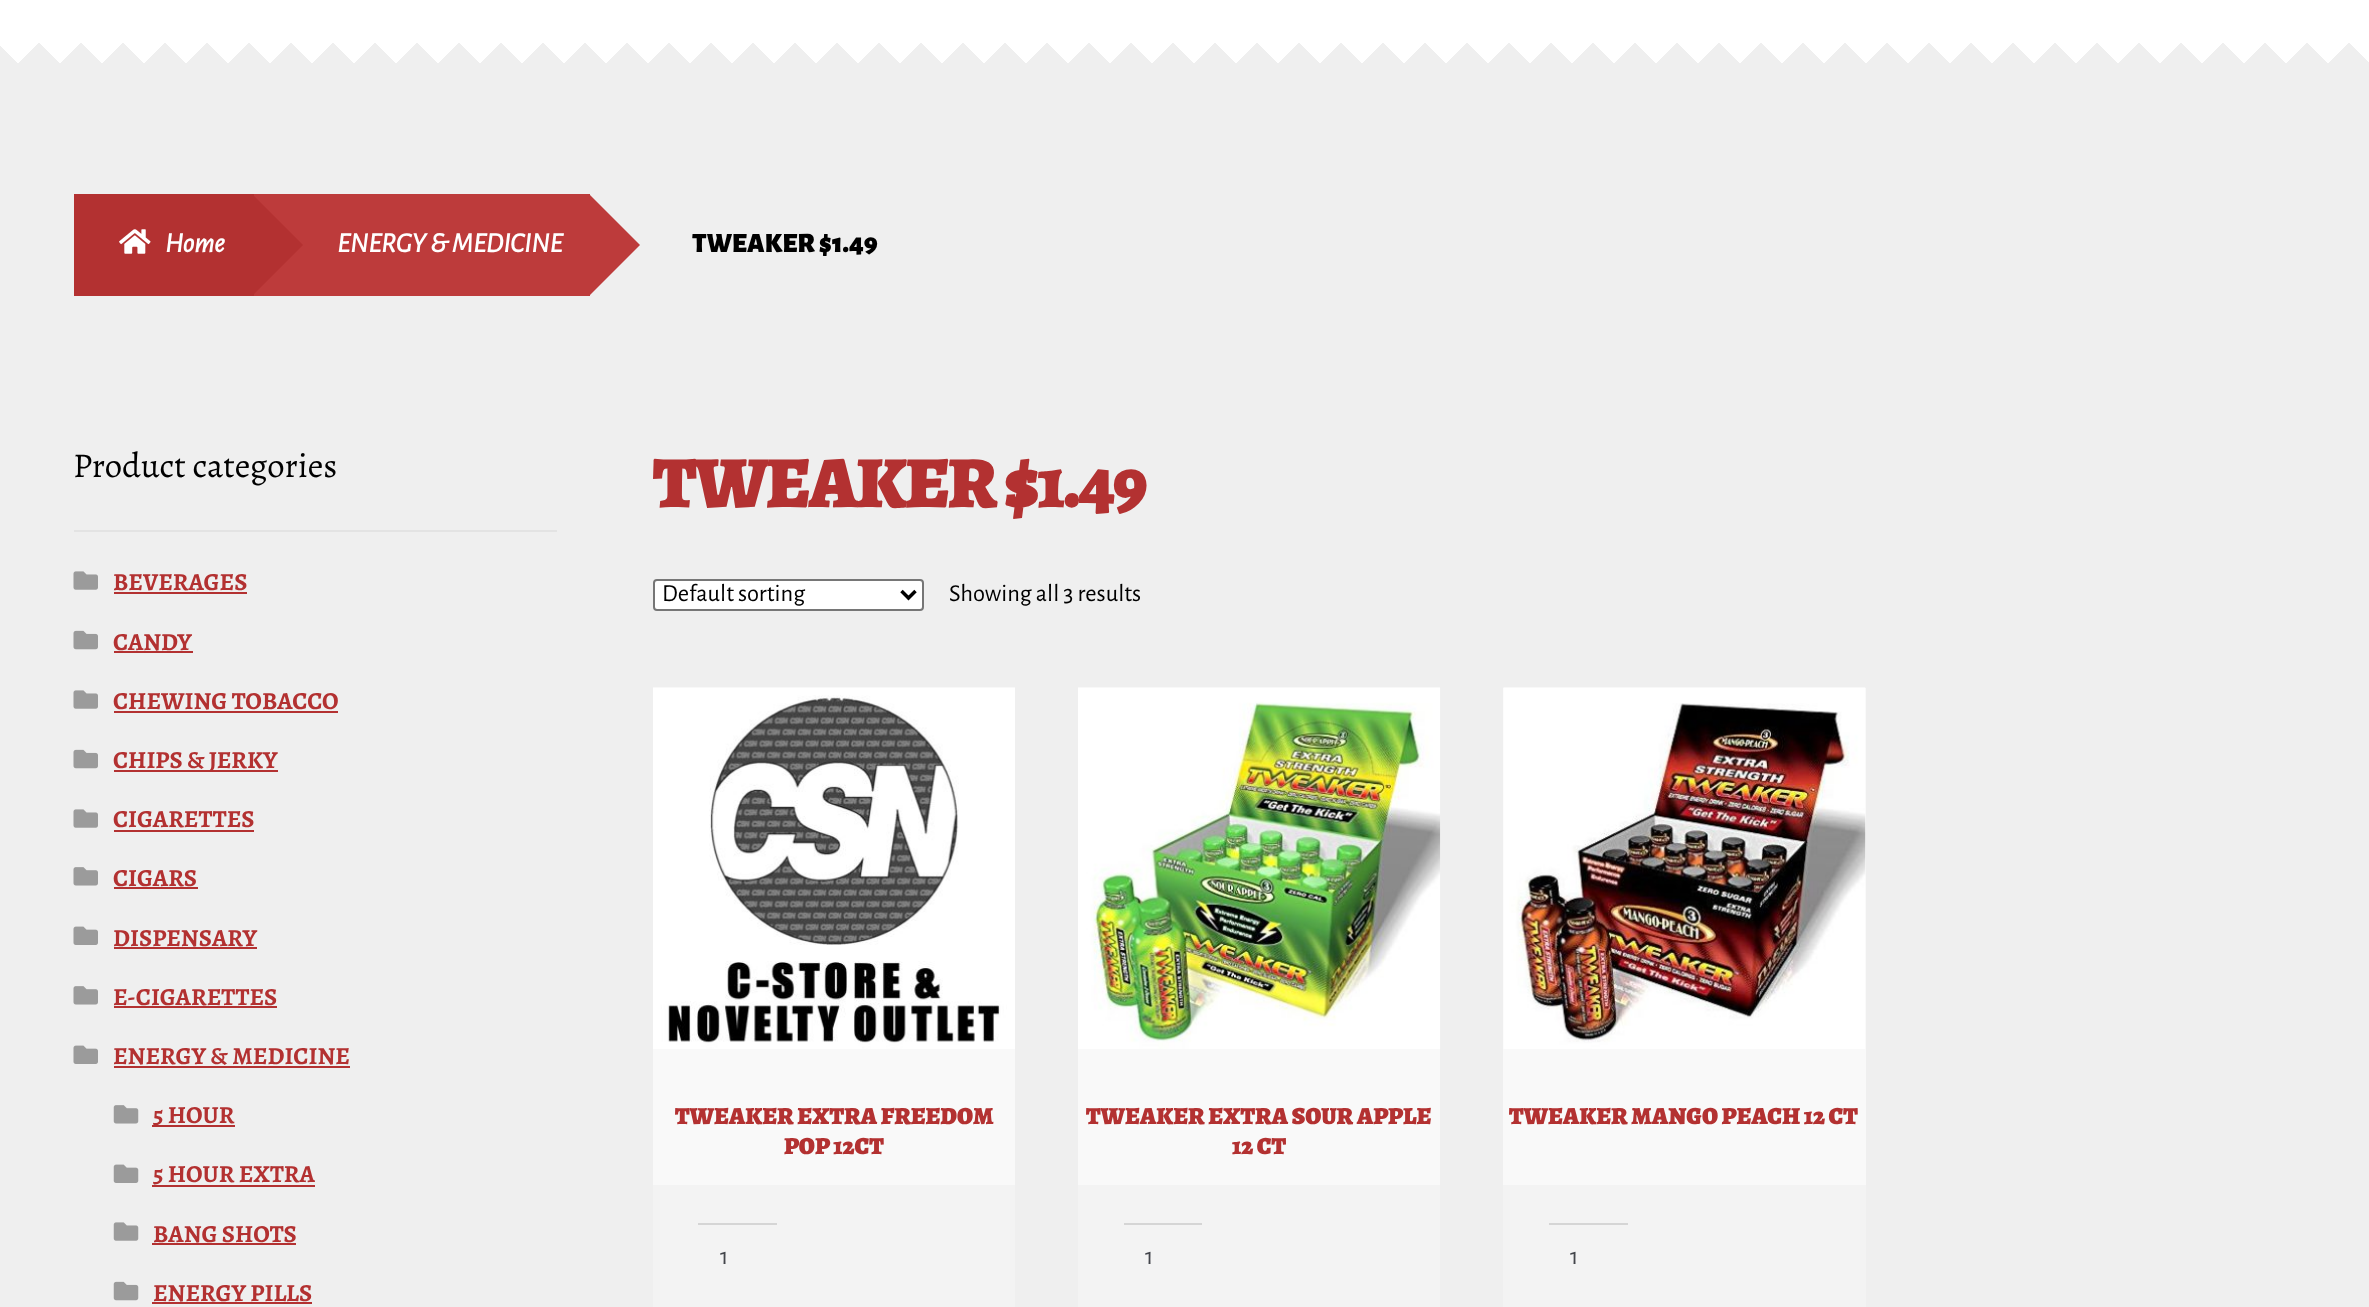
async function draw(canvas) {
  canvas.width = 2369
  canvas.height = 1307
  const ctx = canvas.getContext('2d')
  ctx.miterLimit = 4
  ctx.fontKerning = 'normal'
  async function loadImage(src) {
    const img = new Image()
    img.src = src
    await img.decode()
    return img
  }

  ctx.fillStyle = '#efefef'
  ctx.fillRect(0, 0, 2369, 1307)
  ctx.fillStyle = '#fff'
  ctx.fillRect(0, 0, 2369, 35)
  ctx.drawImage(await loadImage('image0.png'), 0, 35, 2369, 28)
  ctx.drawImage(await loadImage('image1.png'), 18, 35, 2331, 28)
  ctx.fillStyle = '#b33131'
  ctx.fillRect(74, 194, 180, 102)
  ctx.drawImage(await loadImage('image2.png'), 119, 229, 32, 25)
  ctx.font = 'italic bold 28px Alegreya Sans'
  ctx.fillStyle = '#fff'
  ctx.fillText('Home', 165, 252)
  ctx.fillStyle = '#bd3b3b'
  ctx.fillRect(254, 194, 336, 102)
  ctx.save()
  ctx.beginPath()
  ctx.rect(74, 194, 2222, 102)
  ctx.clip()
  ctx.fillStyle = '#b33131'
  ctx.beginPath()
  ctx.moveTo(247, 301)
  ctx.lineTo(247, 189)
  ctx.lineTo(303, 245)
  ctx.closePath()
  ctx.fill()
  ctx.restore()
  ctx.fillStyle = '#fff'
  ctx.fillText('ENERGY & MEDICINE', 337, 252)
  ctx.save()
  ctx.beginPath()
  ctx.rect(74, 194, 2222, 102)
  ctx.clip()
  ctx.fillStyle = '#bd3b3b'
  ctx.beginPath()
  ctx.moveTo(584, 301)
  ctx.lineTo(584, 189)
  ctx.lineTo(640, 245)
  ctx.closePath()
  ctx.fill()
  ctx.restore()
  ctx.font = '900 28px Alegreya Sans'
  ctx.fillStyle = '#000'
  ctx.fillText('TWEAKER $1.49', 692, 252)
  ctx.fillStyle = '#e3e3e3'
  ctx.fillRect(74, 530, 483, 2)
  ctx.font = '34.75px Alegreya'
  ctx.fillStyle = '#000'
  ctx.fillText('Product categories', 73, 477)
  ctx.drawImage(await loadImage('image3.png'), 73, 571, 25, 19)
  ctx.font = 'bold 24.5px Alegreya'
  ctx.fillStyle = '#b33131'
  ctx.fillText('BEVERAGES', 113, 590)
  ctx.fillRect(114, 592, 133, 2)
  ctx.drawImage(await loadImage('image4.png'), 73, 630, 25, 20)
  ctx.fillText('CANDY', 113, 650)
  ctx.fillRect(114, 651, 79, 2)
  ctx.drawImage(await loadImage('image3.png'), 73, 690, 25, 19)
  ctx.fillText('CHEWING TOBACCO', 113, 709)
  ctx.fillRect(114, 711, 224, 2)
  ctx.drawImage(await loadImage('image4.png'), 73, 749, 25, 20)
  ctx.fillRect(114, 770, 164, 2)
  ctx.fillText('CHIPS & JERKY', 113, 768)
  ctx.drawImage(await loadImage('image3.png'), 73, 809, 25, 19)
  ctx.fillText('CIGARETTES', 113, 827)
  ctx.fillRect(114, 830, 140, 2)
  ctx.drawImage(await loadImage('image5.png'), 73, 867, 25, 19)
  ctx.fillText('CIGARS', 113, 886)
  ctx.fillRect(114, 887, 84, 2)
  ctx.drawImage(await loadImage('image6.png'), 73, 926, 25, 19)
  ctx.fillText('DISPENSARY', 113, 946)
  ctx.fillRect(114, 947, 143, 2)
  ctx.drawImage(await loadImage('image5.png'), 73, 986, 25, 19)
  ctx.fillText('E-CIGARETTES', 113, 1005)
  ctx.fillRect(114, 1006, 163, 2)
  ctx.drawImage(await loadImage('image6.png'), 73, 1045, 25, 19)
  ctx.fillText('ENERGY & MEDICINE', 113, 1064)
  ctx.fillRect(114, 1066, 236, 2)
  ctx.drawImage(await loadImage('image7.png'), 113, 1105, 26, 19)
  ctx.fillRect(152, 1125, 83, 2)
  ctx.fillText('5 HOUR', 153, 1123)
  ctx.drawImage(await loadImage('image8.png'), 113, 1164, 26, 19)
  ctx.fillText('5 HOUR EXTRA', 153, 1182)
  ctx.fillRect(152, 1185, 163, 2)
  ctx.drawImage(await loadImage('image9.png'), 113, 1222, 26, 19)
  ctx.fillText('BANG SHOTS', 153, 1242)
  ctx.fillRect(152, 1243, 144, 2)
  ctx.drawImage(await loadImage('image10.png'), 113, 1281, 26, 20)
  ctx.fillText('ENERGY PILLS', 153, 1301)
  ctx.fillRect(152, 1302, 160, 2)
  ctx.letterSpacing = '-1.75px'
  ctx.font = '900 73.25px Alegreya'
  ctx.fillText('TWEAKER $1.49', 653, 507)
  ctx.fillStyle = '#fff'
  ctx.beginPath()
  ctx.roundRect(654, 580, 269, 30, 3)
  ctx.fill()
  ctx.strokeStyle = '#767676'
  ctx.lineWidth = 2
  ctx.stroke()
  ctx.beginPath()
  ctx.moveTo(901.5, 591)
  ctx.lineTo(908.5, 598)
  ctx.lineTo(915.5, 591)
  ctx.strokeStyle = '#000'
  ctx.lineWidth = 3.5
  ctx.stroke()
  ctx.letterSpacing = '0px'
  ctx.font = '24.5px Alegreya Sans'
  ctx.fillStyle = '#000'
  ctx.fillText('Default sorting', 662, 601)
  ctx.fillText('Showing all 3 results', 949, 601)
  ctx.fillStyle = '#f9f9f9'
  ctx.fillRect(653, 1049, 362, 136)
  ctx.drawImage(await loadImage('image11.png'), 653, 687, 362, 362)
  ctx.font = '900 24.5px Alegreya'
  ctx.fillStyle = '#b33131'
  ctx.fillText('TWEAKER EXTRA FREEDOM', 675, 1124)
  ctx.fillText('POP 12CT', 784, 1154)
  ctx.fillStyle = '#f3f3f3'
  ctx.fillRect(653, 1185, 362, 122)
  ctx.fillStyle = '#d5d5d5'
  ctx.fillRect(698, 1223, 79, 2)
  ctx.font = '24.5px Alegreya Sans'
  ctx.fillStyle = '#43454b'
  ctx.fillText('1', 720, 1264)
  ctx.fillStyle = '#f9f9f9'
  ctx.fillRect(1078, 1049, 362, 136)
  ctx.drawImage(await loadImage('image12.png'), 1078, 687, 363, 362)
  ctx.font = '900 24.5px Alegreya'
  ctx.fillStyle = '#b33131'
  ctx.fillText('TWEAKER EXTRA SOUR APPLE', 1086, 1124)
  ctx.fillText('12 CT', 1232, 1154)
  ctx.fillStyle = '#f3f3f3'
  ctx.fillRect(1078, 1185, 362, 122)
  ctx.fillStyle = '#d5d5d5'
  ctx.fillRect(1124, 1223, 78, 2)
  ctx.font = '24.5px Alegreya Sans'
  ctx.fillStyle = '#43454b'
  ctx.fillText('1', 1145, 1264)
  ctx.fillStyle = '#f9f9f9'
  ctx.fillRect(1503, 688, 363, 497)
  ctx.drawImage(await loadImage('image13.png'), 1503, 687, 363, 362)
  ctx.font = '900 24.5px Alegreya'
  ctx.fillStyle = '#b33131'
  ctx.fillText('TWEAKER MANGO PEACH 12 CT', 1509, 1124)
  ctx.fillStyle = '#f3f3f3'
  ctx.fillRect(1503, 1185, 363, 122)
  ctx.fillStyle = '#d5d5d5'
  ctx.fillRect(1549, 1223, 79, 2)
  ctx.font = '24.5px Alegreya Sans'
  ctx.fillStyle = '#43454b'
  ctx.fillText('1', 1570, 1264)
}

draw(document.querySelector('canvas'))
